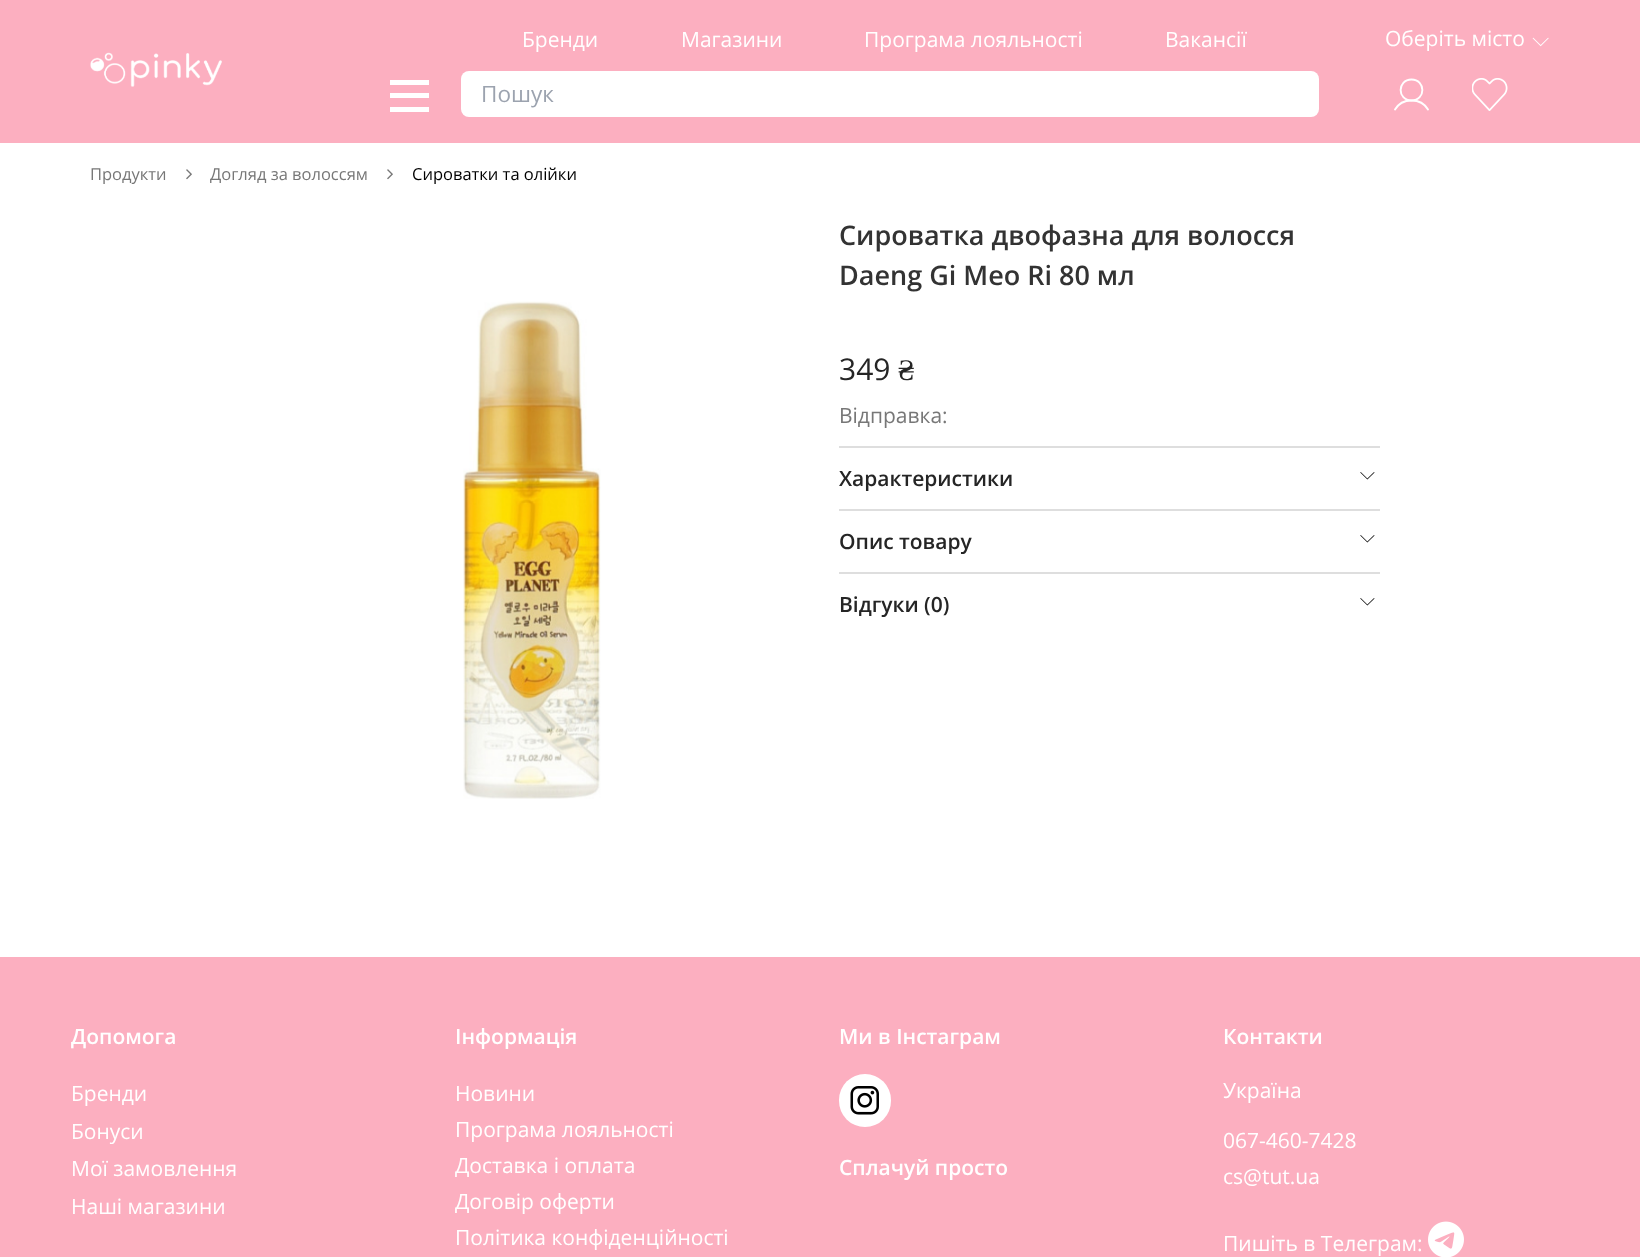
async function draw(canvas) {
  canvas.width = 1640
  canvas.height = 1257
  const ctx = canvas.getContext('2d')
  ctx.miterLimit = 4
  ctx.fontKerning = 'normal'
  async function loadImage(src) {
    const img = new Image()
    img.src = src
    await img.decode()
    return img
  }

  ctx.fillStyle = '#fff'
  ctx.fillRect(0, 0, 1640, 1257)
  ctx.fillStyle = '#fcafc0'
  ctx.fillRect(0, 0, 1640, 143)
  ctx.drawImage(await loadImage('image0.png'), 90, 52, 132, 35)
  ctx.fillStyle = '#fff'
  ctx.fillRect(390, 93, 39, 5)
  ctx.fillRect(390, 80, 39, 5)
  ctx.fillRect(390, 107, 39, 5)
  ctx.font = '21px Open Sans'
  ctx.fillText('Бренди', 522, 47)
  ctx.fillText('Магазини', 681, 47)
  ctx.fillText('Програма лояльності', 864, 47)
  ctx.fillText('Вакансії', 1165, 47)
  ctx.beginPath()
  ctx.roundRect(461, 71, 858, 46, 8)
  ctx.fill()
  ctx.font = '22.5px Open Sans'
  ctx.fillStyle = '#9ca3af'
  ctx.fillText('Пошук', 481, 102)
  ctx.font = '21px Open Sans'
  ctx.fillStyle = '#fff'
  ctx.fillText('Оберіть місто', 1385, 46)
  ctx.font = '19px Liberation Serif'
  ctx.save()
  ctx.translate(1538, 49)
  ctx.rotate(-45 * Math.PI / 180)
  ctx.fillText('∟', 0, 0)
  ctx.restore()
  ctx.beginPath()
  ctx.moveTo(1411.5, 100.5)
  ctx.bezierCurveTo(1426, 100.5, 1426, 79.5, 1411.5, 79.5)
  ctx.bezierCurveTo(1397, 79.5, 1397, 100.5, 1411.5, 100.5)
  ctx.closePath()
  ctx.strokeStyle = '#fff'
  ctx.lineWidth = 1.9
  ctx.stroke()
  ctx.beginPath()
  ctx.moveTo(1395, 109.5)
  ctx.bezierCurveTo(1402, 97.5, 1421, 97.5, 1428, 109.5)
  ctx.lineCap = 'round'
  ctx.lineJoin = 'round'
  ctx.stroke()
  ctx.drawImage(await loadImage('image1.png'), 1472, 78, 36, 33)
  ctx.font = '16.5px Open Sans'
  ctx.fillStyle = '#777'
  ctx.fillText('Продукти', 90, 180)
  ctx.drawImage(await loadImage('image2.png'), 186, 169, 6, 11)
  ctx.fillText('Догляд за волоссям', 210, 180)
  ctx.drawImage(await loadImage('image2.png'), 387, 169, 6, 11)
  ctx.fillStyle = '#000'
  ctx.fillText('Сироватки та олійки', 412, 180)
  ctx.drawImage(await loadImage('image3.png'), 463, 301, 138, 498)
  ctx.font = '600 27px Open Sans'
  ctx.fillStyle = '#333'
  ctx.fillText('Сироватка двофазна для волосся', 839, 245)
  ctx.fillText('Daeng Gi Meo Ri 80 мл', 839, 285)
  ctx.font = '30px Open Sans'
  ctx.fillStyle = '#252525'
  ctx.fillText('349', 839, 380)
  ctx.font = '30px Liberation Serif'
  ctx.fillText('₴', 898, 380)
  ctx.font = '21px Open Sans'
  ctx.fillStyle = '#777'
  ctx.fillText('Відправка:', 839, 423)
  ctx.fillStyle = '#dedede'
  ctx.fillRect(839, 446, 541, 2)
  ctx.font = '600 21px Open Sans'
  ctx.fillStyle = '#252525'
  ctx.fillText('Характеристики', 839, 486)
  ctx.font = 'bold 17px Liberation Serif'
  ctx.fillStyle = '#000'
  ctx.save()
  ctx.translate(1365, 482)
  ctx.rotate(-45 * Math.PI / 180)
  ctx.fillText('∟', 0, 0)
  ctx.restore()
  ctx.fillStyle = '#dedede'
  ctx.fillRect(839, 509, 541, 2)
  ctx.font = '600 21px Open Sans'
  ctx.fillStyle = '#252525'
  ctx.fillText('Опис товару', 839, 549)
  ctx.font = 'bold 17px Liberation Serif'
  ctx.fillStyle = '#000'
  ctx.save()
  ctx.translate(1365, 545)
  ctx.rotate(-45 * Math.PI / 180)
  ctx.fillText('∟', 0, 0)
  ctx.restore()
  ctx.fillStyle = '#dedede'
  ctx.fillRect(839, 572, 541, 2)
  ctx.font = '600 21px Open Sans'
  ctx.fillStyle = '#252525'
  ctx.fillText('Відгуки (0)', 839, 612)
  ctx.font = 'bold 17px Liberation Serif'
  ctx.fillStyle = '#000'
  ctx.save()
  ctx.translate(1365, 608)
  ctx.rotate(-45 * Math.PI / 180)
  ctx.fillText('∟', 0, 0)
  ctx.restore()
  ctx.fillStyle = '#fcafc0'
  ctx.fillRect(0, 957, 1640, 300)
  ctx.font = '600 21px Open Sans'
  ctx.fillStyle = '#fff'
  ctx.fillText('Допомога', 71, 1044)
  ctx.font = '21px Open Sans'
  ctx.fillText('Бренди', 71, 1101)
  ctx.fillText('Бонуси', 71, 1139)
  ctx.fillText('Мої замовлення', 71, 1176)
  ctx.fillText('Наші магазини', 71, 1214)
  ctx.font = '600 21px Open Sans'
  ctx.fillText('Інформація', 455, 1044)
  ctx.font = '21px Open Sans'
  ctx.fillText('Новини', 455, 1101)
  ctx.fillText('Програма лояльності', 455, 1137)
  ctx.fillText('Доставка і оплата', 455, 1173)
  ctx.fillText('Договір оферти', 455, 1209)
  ctx.fillText('Політика конфіденційності', 455, 1245)
  ctx.font = '600 21px Open Sans'
  ctx.fillText('Ми в Інстаграм', 839, 1044)
  ctx.beginPath()
  ctx.roundRect(839, 1074, 52, 53, 26)
  ctx.fill()
  ctx.drawImage(await loadImage('image4.png'), 850, 1086, 29, 29)
  ctx.fillText('Сплачуй просто', 839, 1175)
  ctx.fillText('Контакти', 1223, 1044)
  ctx.font = '21px Open Sans'
  ctx.fillText('Україна', 1223, 1098)
  ctx.fillText('067-460-7428', 1223, 1148)
  ctx.fillText('cs@tut.ua', 1223, 1184)
  ctx.fillText('Пишіть в Телеграм:', 1223, 1251)
  ctx.drawImage(await loadImage('image5.png'), 1428, 1221, 36, 36)
}

draw(document.querySelector('canvas'))
